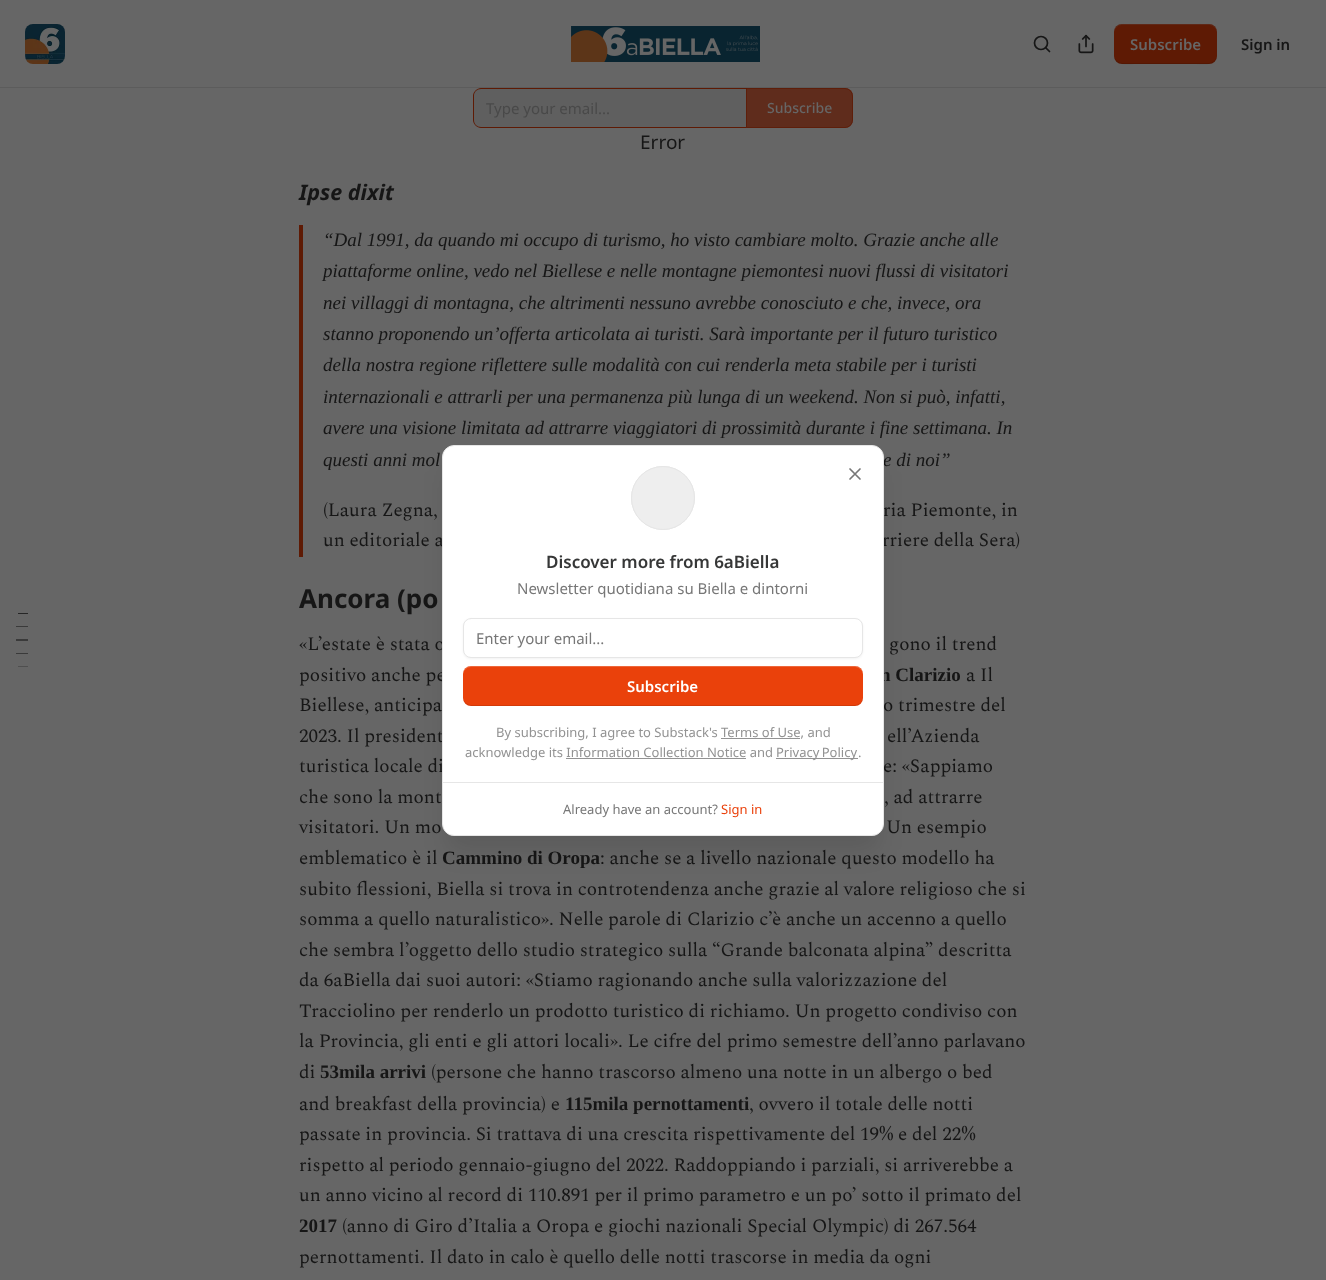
async function draw(canvas) {
  canvas.width = 1326
  canvas.height = 1280
  const ctx = canvas.getContext('2d')
  ctx.miterLimit = 4
  ctx.fontKerning = 'normal'
  async function loadImage(src) {
    const img = new Image()
    img.src = src
    await img.decode()
    return img
  }

  ctx.fillStyle = '#666'
  ctx.fillRect(0, 0, 1326, 1280)
  ctx.fillStyle = '#5c5c5c'
  ctx.fillRect(0, 87, 1326, 1)
  ctx.drawImage(await loadImage('image0.png'), 25, 24, 40, 40)
  ctx.drawImage(await loadImage('image1.png'), 571, 26, 189, 36)
  ctx.beginPath()
  ctx.arc(1041, 43, 6.5, 0, 2 * Math.PI)
  ctx.strokeStyle = '#161616'
  ctx.lineWidth = 1.7
  ctx.stroke()
  ctx.beginPath()
  ctx.moveTo(1049.5, 51.5)
  ctx.lineTo(1046, 48)
  ctx.lineCap = 'round'
  ctx.lineJoin = 'round'
  ctx.stroke()
  ctx.drawImage(await loadImage('image2.png'), 1078, 34, 16, 20)
  ctx.fillStyle = '#5e1a04'
  ctx.beginPath()
  ctx.roundRect(1114, 24, 103, 40, 8)
  ctx.fill()
  ctx.fillStyle = '#0000001a'
  ctx.beginPath()
  ctx.moveTo(1114, 55)
  ctx.bezierCurveTo(1114, 67, 1128, 64, 1136, 64)
  ctx.lineTo(1194, 64)
  ctx.bezierCurveTo(1203, 64, 1217, 67, 1217, 55)
  ctx.bezierCurveTo(1217, 59, 1213, 63, 1209, 63)
  ctx.lineTo(1122, 63)
  ctx.bezierCurveTo(1118, 63, 1114, 59, 1114, 55)
  ctx.closePath()
  ctx.fill()
  ctx.fillStyle = '#66666633'
  ctx.beginPath()
  ctx.moveTo(1122, 25)
  ctx.lineTo(1209, 25)
  ctx.bezierCurveTo(1213, 25, 1217, 29, 1217, 33)
  ctx.bezierCurveTo(1217, 21, 1203, 24, 1194, 24)
  ctx.lineTo(1136, 24)
  ctx.bezierCurveTo(1128, 24, 1114, 21, 1114, 33)
  ctx.bezierCurveTo(1114, 29, 1118, 25, 1122, 25)
  ctx.closePath()
  ctx.fill()
  ctx.font = '600 15px Noto Sans'
  ctx.fillStyle = '#666'
  ctx.fillText('Subscribe', 1130, 50)
  ctx.fillStyle = '#161616'
  ctx.fillText('Sign in', 1241, 50)
  ctx.fillStyle = '#262626'
  ctx.fillRect(18, 613, 10, 1)
  ctx.fillStyle = '#3a3a3a'
  ctx.fillRect(16, 626, 12, 1)
  ctx.fillRect(16, 639, 12, 2)
  ctx.fillRect(16, 653, 12, 1)
  ctx.fillStyle = '#4f4f4f'
  ctx.fillRect(18, 666, 10, 1)
  ctx.fillStyle = '#5f5f5f'
  ctx.beginPath()
  ctx.roundRect(474, 89, 272, 38, [7, 0, 0, 7])
  ctx.fill()
  ctx.fillStyle = '#5e1a04'
  ctx.beginPath()
  ctx.moveTo(481, 88)
  ctx.lineTo(746, 88)
  ctx.lineTo(746, 128)
  ctx.lineTo(481, 128)
  ctx.bezierCurveTo(477, 128, 473, 124, 473, 120)
  ctx.lineTo(473, 96)
  ctx.bezierCurveTo(473, 92, 477, 88, 481, 88)
  ctx.closePath()
  ctx.moveTo(481, 89)
  ctx.lineTo(746, 89)
  ctx.lineTo(746, 127)
  ctx.lineTo(481, 127)
  ctx.bezierCurveTo(477, 127, 474, 124, 474, 120)
  ctx.lineTo(474, 96)
  ctx.bezierCurveTo(474, 92, 477, 89, 481, 89)
  ctx.closePath()
  ctx.fill('evenodd')
  ctx.font = '15px Noto Sans'
  ctx.fillStyle = '#494949'
  ctx.fillText('Type your email...', 486, 114)
  ctx.fillStyle = '#5e1a04bf'
  ctx.beginPath()
  ctx.roundRect(746, 88, 107, 40, [0, 8, 8, 0])
  ctx.fill()
  ctx.beginPath()
  ctx.roundRect(746.5, 88.5, 106, 39, [0, 7.5, 7.5, 0])
  ctx.strokeStyle = '#5e1a04bf'
  ctx.lineWidth = 1
  ctx.lineJoin = 'miter'
  ctx.stroke()
  ctx.font = '500 14px Noto Sans'
  ctx.fillStyle = '#666'
  ctx.fillText('Subscribe', 767, 113)
  ctx.font = '19px Noto Sans'
  ctx.fillStyle = '#161616'
  ctx.fillText('Error', 640, 149)
  ctx.font = 'italic bold 21.5px Noto Sans'
  ctx.fillText('Ipse dixit', 299, 200)
  ctx.fillStyle = '#5e1a04'
  ctx.fillRect(299, 225, 4, 332)
  ctx.font = 'italic 19px Liberation Serif'
  ctx.fillStyle = '#161616'
  ctx.fillText('“Dal 1991, da quando mi occupo di turismo, ho visto cambiare molto. Grazie anche alle', 323, 246)
  ctx.fillText('piattaforme online, vedo nel Biellese e nelle montagne piemontesi nuovi flussi di visitatori', 323, 277)
  ctx.fillText('nei villaggi di montagna, che altrimenti nessuno avrebbe conosciuto e che, invece, ora', 323, 309)
  ctx.fillText('stanno proponendo un’offerta articolata ai turisti. Sarà importante per il futuro turistico', 323, 340)
  ctx.fillText('della nostra regione riflettere sulle modalità con cui renderla meta stabile per i turisti', 323, 371)
  ctx.fillText('internazionali e attrarli per una permanenza più lunga di un weekend. Non si può, infatti,', 323, 403)
  ctx.fillText('avere una visione limitata ad attrarre viaggiatori di prossimità durante i fine settimana. In', 323, 434)
  ctx.fillText('questi anni mol', 323, 466)
  ctx.fillText('e di noi”', 883, 466)
  ctx.font = '19px Spectral'
  ctx.fillText('(Laura Zegna,', 323, 516)
  ctx.fillText('ria Piemonte, in', 883, 516)
  ctx.fillText('un editoriale a', 323, 546)
  ctx.fillText('rriere della Sera)', 882, 546)
  ctx.font = 'bold 26px Noto Sans'
  ctx.fillText('Ancora (po', 299, 608)
  ctx.font = '19px Spectral'
  ctx.fillText('«L’estate è stata o', 299, 650)
  ctx.fillText('gono il trend', 889, 650)
  ctx.fillText('positivo anche pe', 299, 681)
  ctx.font = 'bold 19px Liberation Serif'
  ctx.fillText('n Clarizio', 880, 681)
  ctx.font = '19px Spectral'
  ctx.fillText('a Il', 966, 681)
  ctx.fillText('Biellese, anticipa', 299, 711)
  ctx.fillText('o trimestre del', 883, 711)
  ctx.fillText('2023. Il president', 299, 742)
  ctx.fillText('ell’Azienda', 887, 742)
  ctx.fillText('turistica locale di', 299, 772)
  ctx.fillText('e: «Sappiamo', 883, 772)
  ctx.fillText('che sono la mont', 299, 803)
  ctx.fillText(', ad attrarre', 884, 803)
  ctx.fillText('visitatori. Un mo', 299, 833)
  ctx.fillText('Un esempio', 886, 833)
  ctx.fillText('emblematico è il', 299, 864)
  ctx.font = 'bold 19px Liberation Serif'
  ctx.fillText('Cammino di Oropa', 442, 864)
  ctx.font = '19px Spectral'
  ctx.fillText(': anche se a livello nazionale questo modello ha', 600, 864)
  ctx.fillText('subito flessioni, Biella si trova in controtendenza anche grazie al valore religioso che si', 299, 895)
  ctx.fillText('somma a quello naturalistico». Nelle parole di Clarizio c’è anche un accenno a quello', 299, 925)
  ctx.fillText('che sembra l’oggetto dello studio strategico sulla “Grande balconata alpina” descritta', 299, 956)
  ctx.fillText('da 6aBiella dai suoi autori: «Stiamo ragionando anche sulla valorizzazione del', 299, 986)
  ctx.fillText('Tracciolino per renderlo un prodotto turistico di richiamo. Un progetto condiviso con', 299, 1017)
  ctx.fillText('la Provincia, gli enti e gli attori locali». Le cifre del primo semestre dell’anno parlavano', 299, 1047)
  ctx.fillText('di', 299, 1078)
  ctx.font = 'bold 19px Liberation Serif'
  ctx.fillText('53mila arrivi', 320, 1078)
  ctx.font = '19px Spectral'
  ctx.fillText('(persone che hanno trascorso almeno una notte in un albergo o bed', 431, 1078)
  ctx.fillText('and breakfast della provincia) e', 299, 1110)
  ctx.font = 'bold 19px Liberation Serif'
  ctx.fillText('115mila pernottamenti', 565, 1110)
  ctx.font = '19px Spectral'
  ctx.fillText(', ovvero il totale delle notti', 749, 1110)
  ctx.fillText('passate in provincia. Si trattava di una crescita rispettivamente del 19% e del 22%', 299, 1140)
  ctx.fillText('rispetto al periodo gennaio-giugno del 2022. Raddoppiando i parziali, si arriverebbe a', 299, 1171)
  ctx.fillText('un anno vicino al record di 110.891 per il primo parametro e un po’ sotto il primato del', 299, 1201)
  ctx.font = 'bold 19px Liberation Serif'
  ctx.fillText('2017', 299, 1232)
  ctx.font = '19px Spectral'
  ctx.fillText('(anno di Giro d’Italia a Oropa e giochi nazionali Special Olympic) di 267.564', 342, 1232)
  ctx.fillText('pernottamenti. Il dato in calo è quello delle notti trascorse in media da ogni', 299, 1263)
  ctx.fillStyle = '#0000001a'
  ctx.filter = 'blur(12.5px)'
  ctx.beginPath()
  ctx.roundRect(447, 470, 432, 381, 7)
  ctx.fill()
  ctx.filter = 'none'
  ctx.fillStyle = '#fff'
  ctx.beginPath()
  ctx.roundRect(442.5, 445.5, 441, 390, 11.5)
  ctx.fill()
  ctx.strokeStyle = '#e6e6e6'
  ctx.stroke()
  ctx.beginPath()
  ctx.arc(663, 498, 31.5, 0, 2 * Math.PI)
  ctx.stroke()
  ctx.fillStyle = '#eee'
  ctx.beginPath()
  ctx.arc(663, 498, 31.5, 0, 2 * Math.PI)
  ctx.fill()
  ctx.stroke()
  ctx.beginPath()
  ctx.moveTo(860, 469)
  ctx.lineTo(850, 479)
  ctx.moveTo(850, 469)
  ctx.lineTo(860, 479)
  ctx.strokeStyle = '#777'
  ctx.lineWidth = 1.7
  ctx.lineJoin = 'round'
  ctx.stroke()
  ctx.font = '600 17px Noto Sans'
  ctx.fillStyle = '#363737'
  ctx.fillText('Discover more from 6aBiella', 546, 568)
  ctx.font = '15px Noto Sans'
  ctx.fillStyle = '#777'
  ctx.fillText('Newsletter quotidiana su Biella e dintorni', 517, 594)
  ctx.fillStyle = '#0000000d'
  ctx.filter = 'blur(1px)'
  ctx.beginPath()
  ctx.roundRect(463, 619, 400, 40, 8)
  ctx.fill()
  ctx.filter = 'none'
  ctx.fillStyle = '#fff'
  ctx.beginPath()
  ctx.roundRect(463.5, 618.5, 399, 39, 7.5)
  ctx.fill()
  ctx.strokeStyle = '#e6e6e6'
  ctx.lineWidth = 1
  ctx.lineJoin = 'miter'
  ctx.stroke()
  ctx.fillStyle = '#777'
  ctx.fillText('Enter your email...', 476, 644)
  ctx.fillStyle = '#ea410b'
  ctx.beginPath()
  ctx.roundRect(463, 666, 400, 40, 8)
  ctx.fill()
  ctx.fillStyle = '#0000001a'
  ctx.beginPath()
  ctx.moveTo(463, 697)
  ctx.lineTo(463, 698)
  ctx.bezierCurveTo(463, 702, 467, 706, 471, 706)
  ctx.lineTo(855, 706)
  ctx.bezierCurveTo(859, 706, 863, 702, 863, 698)
  ctx.lineTo(863, 697)
  ctx.bezierCurveTo(863, 701, 859, 705, 855, 705)
  ctx.lineTo(471, 705)
  ctx.bezierCurveTo(467, 705, 463, 701, 463, 697)
  ctx.closePath()
  ctx.fill()
  ctx.fillStyle = '#ffffff33'
  ctx.beginPath()
  ctx.moveTo(471, 667)
  ctx.lineTo(855, 667)
  ctx.bezierCurveTo(859, 667, 863, 671, 863, 675)
  ctx.lineTo(863, 674)
  ctx.bezierCurveTo(863, 670, 859, 666, 855, 666)
  ctx.lineTo(471, 666)
  ctx.bezierCurveTo(467, 666, 463, 670, 463, 674)
  ctx.lineTo(463, 675)
  ctx.bezierCurveTo(463, 671, 467, 667, 471, 667)
  ctx.closePath()
  ctx.fill()
  ctx.font = '600 15px Noto Sans'
  ctx.fillStyle = '#fff'
  ctx.fillText('Subscribe', 627, 692)
  ctx.font = '13px Noto Sans'
  ctx.fillStyle = '#929292'
  ctx.fillText('By subscribing, I agree to Substack\'s Terms of Use, and', 496, 737)
  ctx.fillRect(721, 738, 79, 1)
  ctx.fillText('acknowledge its Information Collection Notice and', 465, 757)
  ctx.fillRect(776, 758, 82, 1)
  ctx.wordSpacing = '-1px'
  ctx.fillText('Privacy Policy', 776, 757)
  ctx.wordSpacing = '0px'
  ctx.fillText('.', 858, 757)
  ctx.fillRect(566, 758, 180, 1)
  ctx.fillStyle = '#e6e6e6'
  ctx.fillRect(443, 782, 440, 1)
  ctx.fillStyle = '#777'
  ctx.fillText('Already have an account?', 563, 814)
  ctx.fillStyle = '#ea410b'
  ctx.fillText('Sign in', 721, 814)
}

draw(document.querySelector('canvas'))
